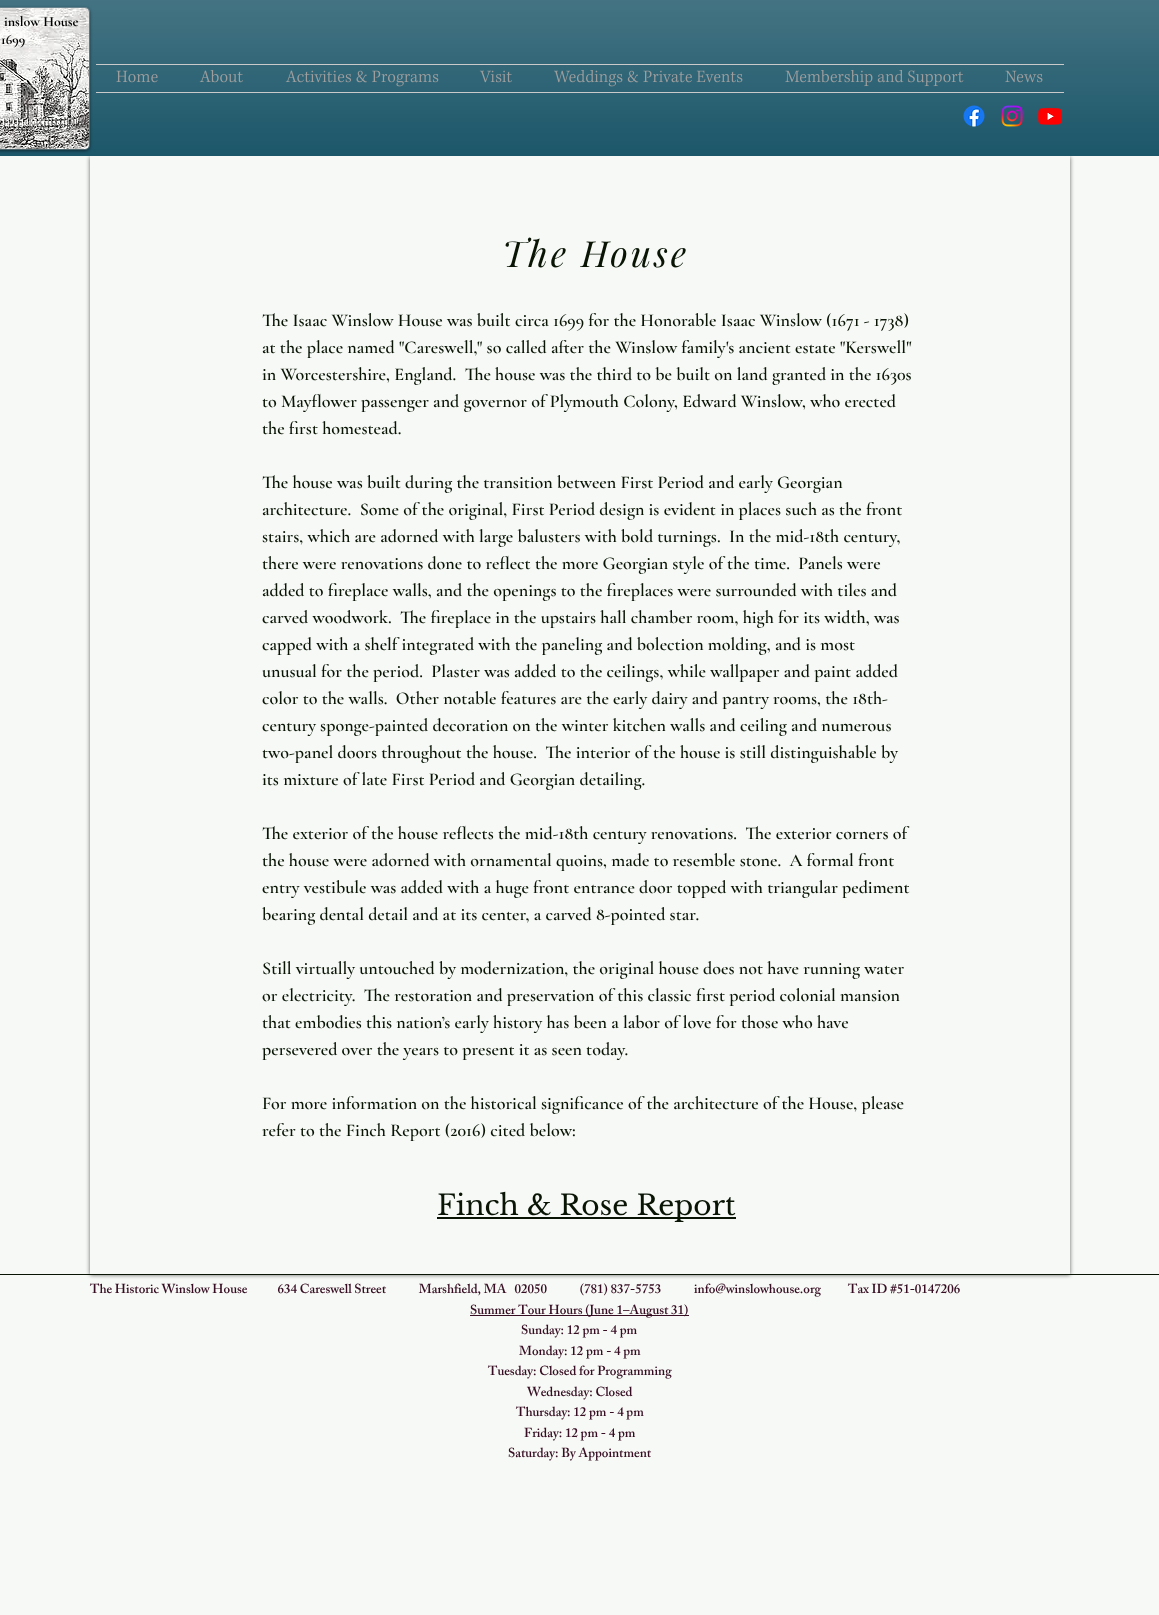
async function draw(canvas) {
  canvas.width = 1159
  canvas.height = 1615
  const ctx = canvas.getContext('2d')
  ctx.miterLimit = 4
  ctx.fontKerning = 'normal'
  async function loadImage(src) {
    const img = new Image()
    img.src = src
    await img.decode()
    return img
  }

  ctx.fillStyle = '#f6f9f5'
  ctx.fillRect(0, 0, 1159, 1615)
  ctx.save()
  ctx.beginPath()
  ctx.moveTo(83, 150)
  ctx.lineTo(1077, 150)
  ctx.lineTo(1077, 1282)
  ctx.lineTo(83, 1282)
  ctx.closePath()
  ctx.moveTo(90, 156)
  ctx.lineTo(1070, 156)
  ctx.lineTo(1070, 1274)
  ctx.lineTo(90, 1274)
  ctx.closePath()
  ctx.clip('evenodd')
  ctx.fillStyle = '#00000099'
  ctx.filter = 'blur(2px)'
  ctx.beginPath()
  ctx.rect(90, 157, 980, 1118)
  ctx.fill()
  ctx.filter = 'none'
  ctx.restore()
  ctx.fillStyle = '#034459'
  ctx.fillRect(0, 0, 1159, 156)
  ctx.drawImage(await loadImage('image0.png'), 0, 0, 1159, 156)
  ctx.fillStyle = '#00000080'
  ctx.filter = 'blur(1.5px)'
  ctx.beginPath()
  ctx.roundRect(-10, 8, 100, 143, 5)
  ctx.fill()
  ctx.filter = 'none'
  ctx.fillStyle = '#f6f9f524'
  ctx.beginPath()
  ctx.roundRect(-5, 7, 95, 143, 5)
  ctx.fill()
  ctx.beginPath()
  ctx.roundRect(-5.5, 7.5, 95, 142, 4.5)
  ctx.strokeStyle = '#f6f9f524'
  ctx.stroke()
  ctx.drawImage(await loadImage('image1.png'), 0, 8, 89, 141)
  ctx.font = 'bold 14px Cormorant Garamond'
  ctx.fillStyle = '#000'
  ctx.fillText('inslow House', 4, 26)
  ctx.fillText('1699', 1, 44)
  ctx.fillStyle = '#cacaca'
  ctx.fillRect(96, 64, 968, 1)
  ctx.fillRect(96, 92, 968, 1)
  ctx.drawImage(await loadImage('image2.png'), 116, 70, 42, 13)
  ctx.drawImage(await loadImage('image3.png'), 199, 70, 44, 13)
  ctx.drawImage(await loadImage('image4.png'), 285, 70, 154, 17)
  ctx.drawImage(await loadImage('image5.png'), 479, 70, 33, 13)
  ctx.drawImage(await loadImage('image6.png'), 554, 70, 189, 17)
  ctx.drawImage(await loadImage('image7.png'), 785, 70, 179, 17)
  ctx.drawImage(await loadImage('image8.png'), 1005, 70, 38, 13)
  ctx.drawImage(await loadImage('image9.png'), 963, 105, 22, 22)
  ctx.drawImage(await loadImage('image10.png'), 1001, 105, 22, 22)
  ctx.drawImage(await loadImage('image11.png'), 1038, 107, 24, 18)
  ctx.letterSpacing = '2.9px'
  ctx.font = 'italic 36px Playfair Display'
  ctx.fillStyle = '#091405'
  ctx.fillText('The House', 502, 267)
  ctx.letterSpacing = '0px'
  ctx.font = '600 18px Cormorant Garamond'
  ctx.fillText('The Isaac Winslow House was built circa 1699 for the Honorable Isaac Winslow (1671 - 1738)', 262, 326)
  ctx.fillText('at the place named "Careswell," so called after the Winslow family\'s ancient estate "Kerswell"', 262, 353)
  ctx.fillText('in Worcestershire, England.  The house was the third to be built on land granted in the 1630s', 262, 380)
  ctx.fillText('to Mayflower passenger and governor of Plymouth Colony, Edward Winslow, who erected', 262, 407)
  ctx.fillText('the first homestead.', 262, 434)
  ctx.fillText('The house was built during the transition between First Period and early Georgian', 262, 488)
  ctx.fillText('architecture.  Some of the original, First Period design is evident in places such as the front', 262, 515)
  ctx.fillText('stairs, which are adorned with large balusters with bold turnings.  In the mid-18th century,', 262, 542)
  ctx.fillText('there were renovations done to reflect the more Georgian style of the time.  Panels were', 262, 569)
  ctx.fillText('added to fireplace walls, and the openings to the fireplaces were surrounded with tiles and', 262, 596)
  ctx.fillText('carved woodwork.  The fireplace in the upstairs hall chamber room, high for its width, was', 262, 623)
  ctx.fillText('capped with a shelf integrated with the paneling and bolection molding, and is most', 262, 650)
  ctx.fillText('unusual for the period.  Plaster was added to the ceilings, while wallpaper and paint added', 262, 677)
  ctx.fillText('color to the walls.  Other notable features are the early dairy and pantry rooms, the 18th-', 262, 704)
  ctx.fillText('century sponge-painted decoration on the winter kitchen walls and ceiling and numerous', 262, 731)
  ctx.fillText('two-panel doors throughout the house.  The interior of the house is still distinguishable by', 262, 758)
  ctx.fillText('its mixture of late First Period and Georgian detailing.', 262, 785)
  ctx.fillText('The exterior of the house reflects the mid-18th century renovations.  The exterior corners of', 262, 839)
  ctx.fillText('the house were adorned with ornamental quoins, made to resemble stone.  A formal front', 262, 866)
  ctx.fillText('entry vestibule was added with a huge front entrance door topped with triangular pediment', 262, 893)
  ctx.fillText('bearing dental detail and at its center, a carved 8-pointed star.', 262, 920)
  ctx.fillText('Still virtually untouched by modernization, the original house does not have running water', 262, 974)
  ctx.fillText('or electricity.  The restoration and preservation of this classic first period colonial mansion', 262, 1001)
  ctx.fillText('that embodies this nation’s early history has been a labor of love for those who have', 262, 1028)
  ctx.fillText('persevered over the years to present it as seen today.', 262, 1055)
  ctx.fillText('For more information on the historical significance of the architecture of the House, please', 262, 1109)
  ctx.fillText('refer to the Finch Report (2016) cited below:', 262, 1136)
  ctx.fillRect(437, 1217, 299, 2)
  ctx.font = '28px Libre Baskerville'
  ctx.fillText('Finch & Rose Report', 437, 1215)
  ctx.fillRect(0, 1274, 1159, 1)
  ctx.font = '600 13px "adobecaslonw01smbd"'
  ctx.fillStyle = '#360d22'
  ctx.fillText('The Historic Winslow House           634 Careswell Street            Marshfield, MA   02050            (781) 837-5753', 90, 1293)
  ctx.fillText('info@winslowhouse.org', 694, 1293)
  ctx.fillText('Tax ID #51-0147206', 848, 1293)
  ctx.fillRect(470, 1315, 219, 1)
  ctx.fillText('Summer Tour Hours (June 1–August 31)', 470, 1314)
  ctx.fillText('Sunday: 12 pm - 4 pm', 521, 1334)
  ctx.fillText('Monday: 12 pm - 4 pm', 519, 1355)
  ctx.fillText('Tuesday: Closed for Programming', 488, 1375)
  ctx.fillText('Wednesday: Closed', 527, 1396)
  ctx.fillText('Thursday: 12 pm - 4 pm', 516, 1416)
  ctx.fillText('Friday: 12 pm - 4 pm', 524, 1437)
  ctx.fillText('Saturday: By Appointment', 508, 1457)
}

draw(document.querySelector('canvas'))
